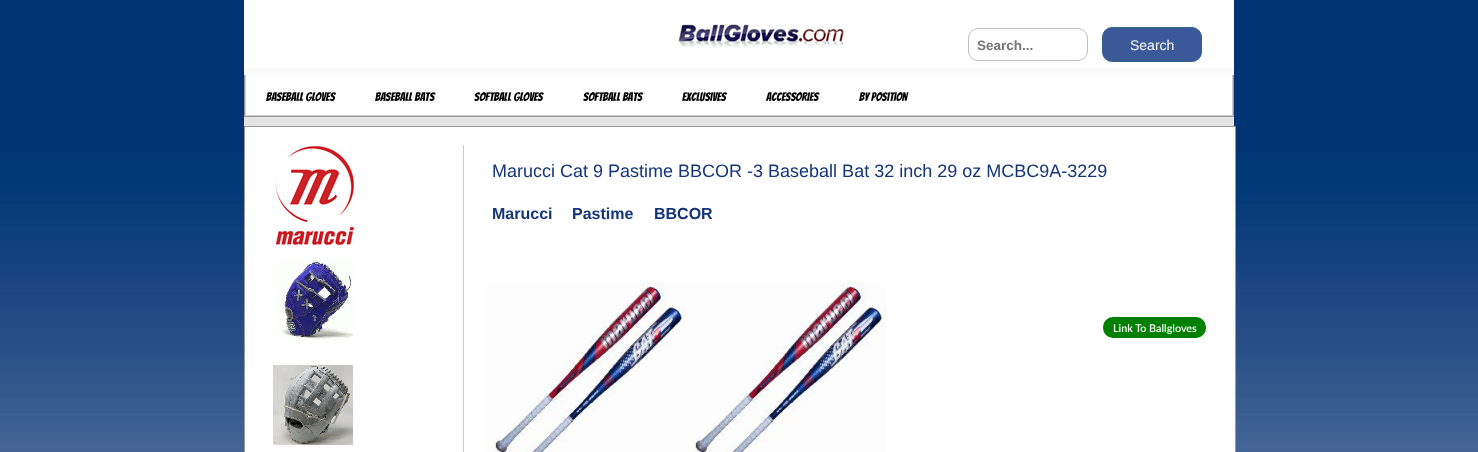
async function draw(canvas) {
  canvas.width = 1478
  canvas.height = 452
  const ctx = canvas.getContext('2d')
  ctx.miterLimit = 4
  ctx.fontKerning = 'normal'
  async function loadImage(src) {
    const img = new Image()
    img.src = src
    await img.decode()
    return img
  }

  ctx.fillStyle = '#fff'
  ctx.fillRect(0, 0, 1478, 452)
  ctx.drawImage(await loadImage('image0.png'), 0, 0, 1478, 452)
  ctx.fillRect(244, 0, 990, 68)
  ctx.drawImage(await loadImage('image1.png'), 244, 68, 990, 7)
  ctx.fillStyle = '#e3e3e3'
  ctx.fillRect(244, 117, 990, 9)
  ctx.drawImage(await loadImage('image2.png'), 678, 24, 166, 23)
  ctx.beginPath()
  ctx.roundRect(968.5, 28.5, 119, 32, 9.5)
  ctx.strokeStyle = '#c0c0c0'
  ctx.stroke()
  ctx.font = 'bold 13.5px Liberation Sans'
  ctx.fillStyle = '#757575'
  ctx.fillText('Search...', 977, 50)
  ctx.fillStyle = '#3b5998'
  ctx.beginPath()
  ctx.roundRect(1102.5, 27.5, 99, 34, 9.5)
  ctx.fill()
  ctx.strokeStyle = '#36648b'
  ctx.stroke()
  ctx.font = '14px Liberation Sans'
  ctx.fillStyle = '#fff'
  ctx.fillText('Search', 1130, 50)
  ctx.fillStyle = '#999'
  ctx.fillRect(1233, 75, 1, 42)
  ctx.fillRect(244, 116, 990, 1)
  ctx.fillRect(244, 75, 1, 42)
  ctx.fillStyle = '#fff'
  ctx.fillRect(246, 75, 986, 40)
  ctx.fillStyle = '#ccc'
  ctx.fillRect(1232, 75, 1, 41)
  ctx.fillRect(245, 115, 988, 1)
  ctx.fillRect(245, 75, 1, 41)
  ctx.font = '12px Bangers'
  ctx.fillStyle = '#000'
  ctx.fillText('Baseball Gloves', 266, 101)
  ctx.fillText('Baseball Bats', 375, 101)
  ctx.fillText('Softball Gloves', 474, 101)
  ctx.fillText('Softball Bats', 583, 101)
  ctx.fillText('Exclusives', 682, 101)
  ctx.fillText('Accessories', 766, 101)
  ctx.fillText('By Position', 859, 101)
  ctx.fillStyle = '#fff'
  ctx.beginPath()
  ctx.rect(244.5, 126.5, 991, 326)
  ctx.fill()
  ctx.strokeStyle = '#999'
  ctx.stroke()
  ctx.drawImage(await loadImage('image3.png'), 275, 146, 79, 99)
  ctx.drawImage(await loadImage('image4.png'), 277, 260, 76, 80)
  ctx.drawImage(await loadImage('image5.png'), 273, 365, 80, 80)
  ctx.fillStyle = '#ccc'
  ctx.fillRect(463, 145, 1, 307)
  ctx.font = '18px Liberation Sans'
  ctx.fillStyle = '#143578'
  ctx.fillText('Marucci Cat 9 Pastime BBCOR -3 Baseball Bat 32 inch 29 oz MCBC9A-3229', 492, 177)
  ctx.font = 'bold 16px Liberation Sans'
  ctx.fillText('Marucci', 492, 219)
  ctx.fillText('Pastime', 572, 219)
  ctx.fillText('BBCOR', 654, 219)
  ctx.drawImage(await loadImage('image6.png'), 487, 282, 200, 170)
  ctx.drawImage(await loadImage('image6.png'), 687, 282, 200, 170)
  ctx.fillStyle = '#008000'
  ctx.beginPath()
  ctx.roundRect(1103, 317, 103, 21, 10)
  ctx.fill()
  ctx.font = '600 10.75px Lato'
  ctx.fillStyle = '#fff'
  ctx.fillText('Link To Ballgloves', 1113, 332)
}

draw(document.querySelector('canvas'))
